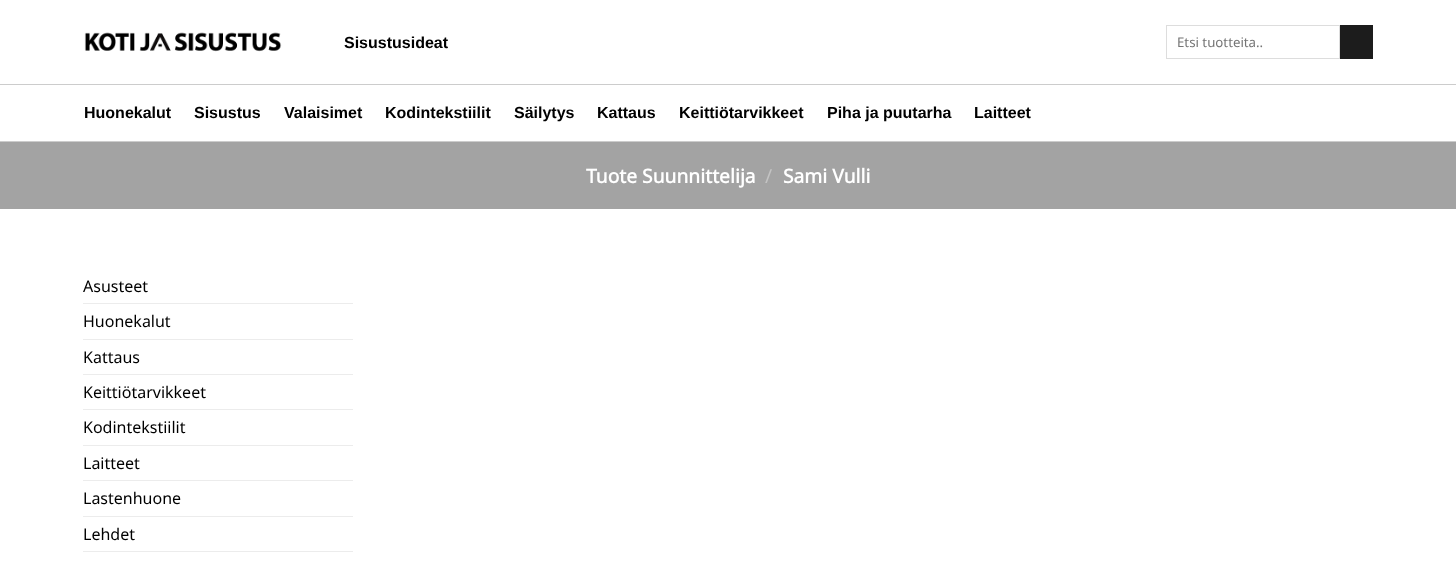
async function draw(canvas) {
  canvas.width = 1456
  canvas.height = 562
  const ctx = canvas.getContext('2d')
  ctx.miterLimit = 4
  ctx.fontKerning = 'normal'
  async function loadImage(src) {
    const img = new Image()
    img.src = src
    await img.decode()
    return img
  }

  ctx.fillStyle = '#fff'
  ctx.fillRect(0, 0, 1456, 562)
  ctx.drawImage(await loadImage('image0.png'), 84, 32, 198, 20)
  ctx.font = 'bold 16px Liberation Sans'
  ctx.fillStyle = '#000'
  ctx.fillText('Sisustusideat', 344, 48)
  ctx.strokeStyle = '#ddd'
  ctx.strokeRect(1166.5, 25.5, 173, 33)
  ctx.font = '13.25px Noto Sans'
  ctx.fillStyle = '#757575'
  ctx.fillText('Etsi tuotteita..', 1177, 47)
  ctx.fillStyle = '#1c1c1c'
  ctx.fillRect(1340, 25, 33, 34)
  ctx.fillStyle = '#ccc'
  ctx.fillRect(0, 84, 1456, 1)
  ctx.fillRect(0, 141, 1456, 1)
  ctx.font = 'bold 16px Liberation Sans'
  ctx.fillStyle = '#000'
  ctx.fillText('Huonekalut', 84, 118)
  ctx.fillText('Sisustus', 194, 118)
  ctx.fillText('Valaisimet', 284, 118)
  ctx.fillText('Kodintekstiilit', 385, 118)
  ctx.fillText('Säilytys', 514, 118)
  ctx.fillText('Kattaus', 597, 118)
  ctx.fillText('Keittiötarvikkeet', 679, 118)
  ctx.fillText('Piha ja puutarha', 827, 118)
  ctx.fillText('Laitteet', 974, 118)
  ctx.fillStyle = '#a3a3a3'
  ctx.fillRect(0, 142, 1456, 67)
  ctx.font = 'bold 19.25px Noto Sans'
  ctx.fillStyle = '#fff'
  ctx.fillText('Tuote Suunnittelija', 586, 183)
  ctx.font = '19.25px Noto Sans'
  ctx.fillStyle = '#c3c3c3'
  ctx.fillText('/', 765, 183)
  ctx.font = 'bold 19.25px Noto Sans'
  ctx.fillStyle = '#fff'
  ctx.fillText('Sami Vulli', 783, 183)
  ctx.font = '16px Noto Sans'
  ctx.fillStyle = '#000'
  ctx.fillText('Asusteet', 83, 292)
  ctx.fillStyle = '#ececec'
  ctx.fillRect(83, 303, 270, 1)
  ctx.fillStyle = '#000'
  ctx.fillText('Huonekalut', 83, 327)
  ctx.fillStyle = '#ececec'
  ctx.fillRect(83, 339, 270, 1)
  ctx.fillStyle = '#000'
  ctx.fillText('Kattaus', 83, 363)
  ctx.fillStyle = '#ececec'
  ctx.fillRect(83, 374, 270, 1)
  ctx.fillStyle = '#000'
  ctx.fillText('Keittiötarvikkeet', 83, 398)
  ctx.fillStyle = '#ececec'
  ctx.fillRect(83, 409, 270, 1)
  ctx.fillStyle = '#000'
  ctx.fillText('Kodintekstiilit', 83, 433)
  ctx.fillStyle = '#ececec'
  ctx.fillRect(83, 445, 270, 1)
  ctx.fillStyle = '#000'
  ctx.fillText('Laitteet', 83, 469)
  ctx.fillStyle = '#ececec'
  ctx.fillRect(83, 480, 270, 1)
  ctx.fillStyle = '#000'
  ctx.fillText('Lastenhuone', 83, 504)
  ctx.fillStyle = '#ececec'
  ctx.fillRect(83, 516, 270, 1)
  ctx.fillStyle = '#000'
  ctx.fillText('Lehdet', 83, 540)
  ctx.fillStyle = '#ececec'
  ctx.fillRect(83, 551, 270, 1)
}

draw(document.querySelector('canvas'))
